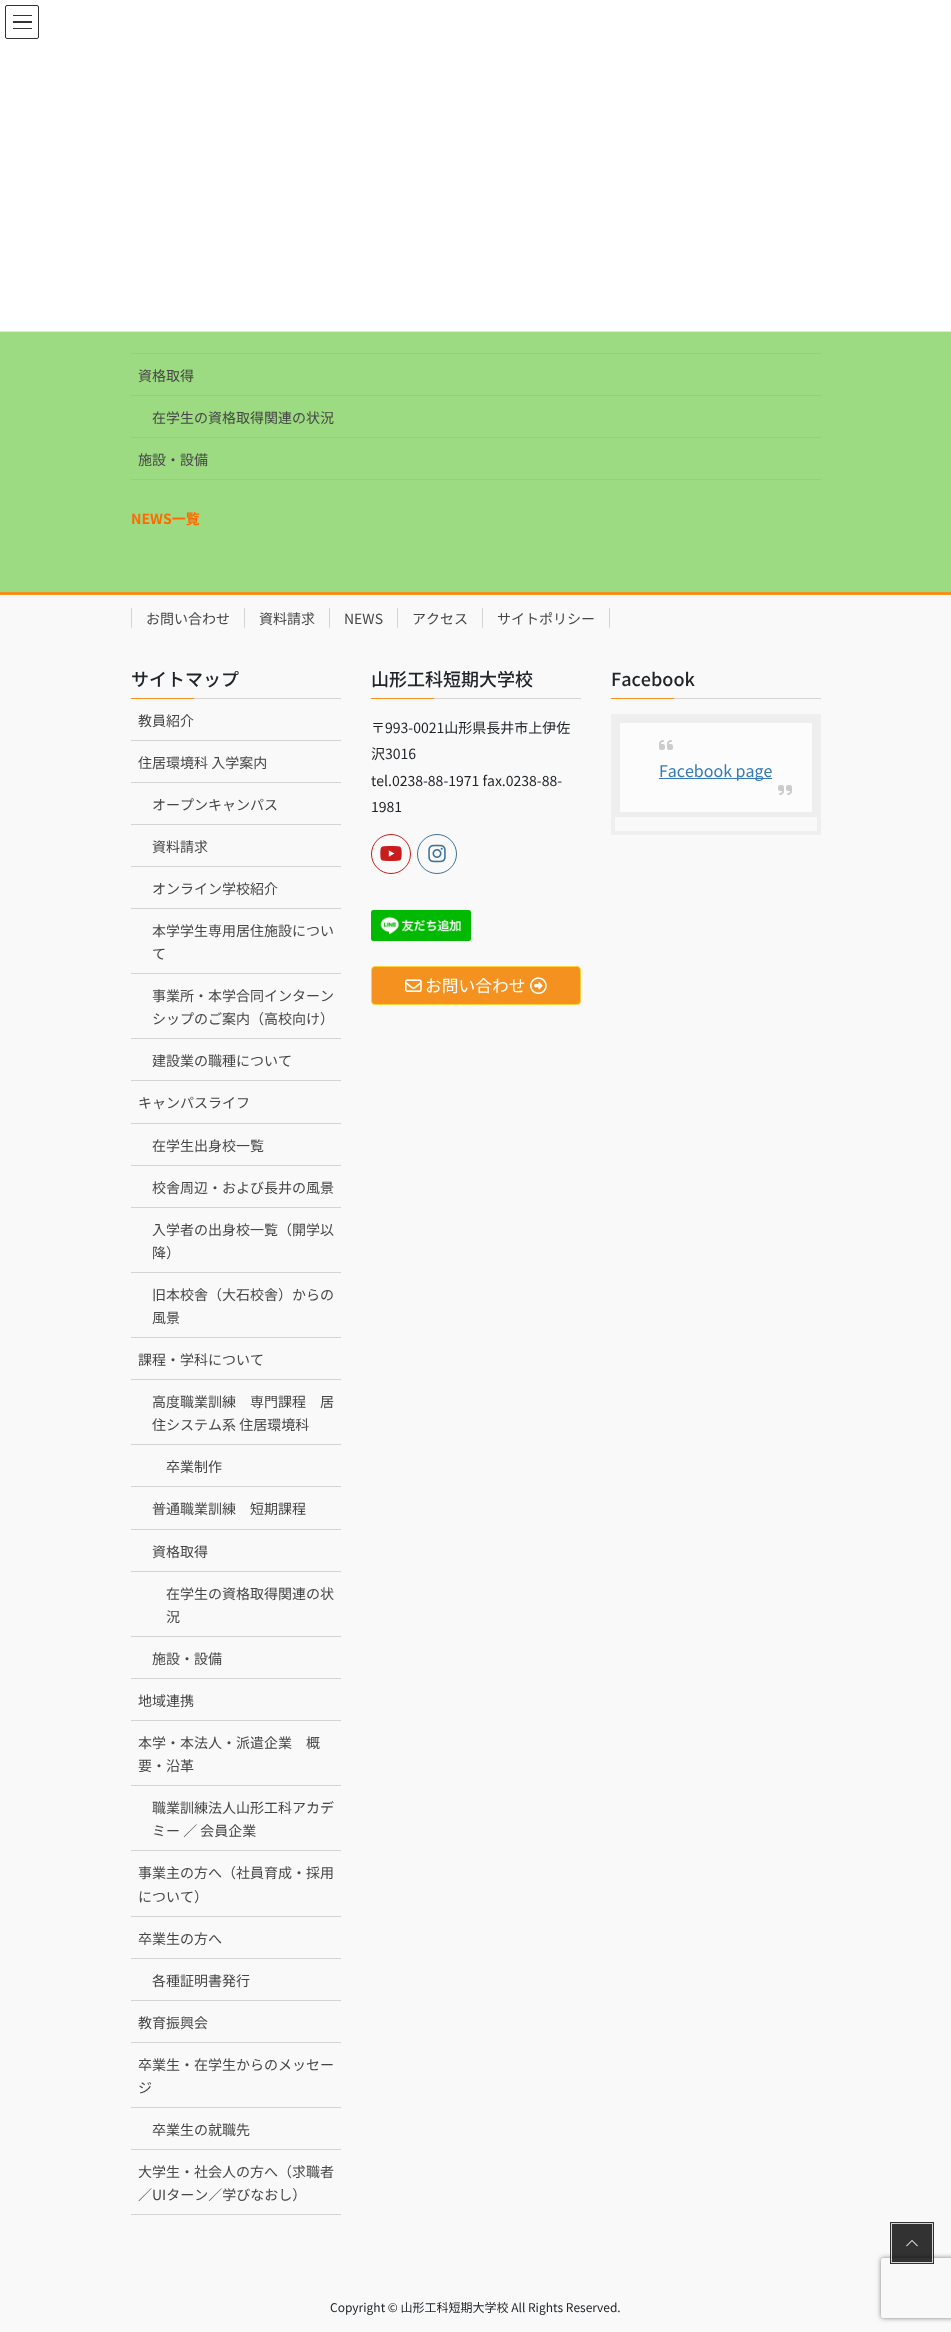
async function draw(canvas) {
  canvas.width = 951
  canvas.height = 2332
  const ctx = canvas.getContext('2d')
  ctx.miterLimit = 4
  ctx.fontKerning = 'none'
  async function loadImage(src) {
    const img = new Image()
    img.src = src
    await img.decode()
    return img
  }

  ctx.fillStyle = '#9cdb81'
  ctx.fillRect(0, 0, 951, 2332)
  ctx.fillStyle = '#fff'
  ctx.fillRect(0, 0, 951, 331)
  ctx.fillStyle = '#e5e5e5'
  ctx.fillRect(0, 331, 951, 1)
  ctx.fillStyle = '#333'
  ctx.fillRect(13, 15, 19, 1)
  ctx.fillRect(13, 21, 19, 2)
  ctx.fillRect(13, 28, 19, 1)
  ctx.beginPath()
  ctx.roundRect(5.5, 5.5, 33, 33, 1.5)
  ctx.strokeStyle = '#333'
  ctx.stroke()
  ctx.fillStyle = '#94d07b'
  ctx.fillRect(131, 353, 690, 1)
  ctx.fillRect(131, 395, 690, 1)
  ctx.font = '14px Noto Sans JP'
  ctx.fillStyle = '#464646'
  ctx.fillText('資格取得', 138, 381)
  ctx.fillStyle = '#94d07b'
  ctx.fillRect(131, 437, 690, 1)
  ctx.fillStyle = '#464646'
  ctx.fillText('在学生の資格取得関連の状況', 152, 423)
  ctx.fillStyle = '#94d07b'
  ctx.fillRect(131, 479, 690, 1)
  ctx.fillStyle = '#464646'
  ctx.fillText('施設・設備', 138, 465)
  ctx.font = 'bold 14px Noto Sans JP'
  ctx.fillStyle = '#ff6900'
  ctx.fillText('NEWS一覧', 131, 524)
  ctx.fillStyle = '#f9f9f9'
  ctx.fillRect(0, 595, 951, 1737)
  ctx.fillStyle = '#f4911f'
  ctx.fillRect(0, 592, 951, 3)
  ctx.font = '14px Noto Sans JP'
  ctx.fillStyle = '#464646'
  ctx.fillText('お問い合わせ', 146, 624)
  ctx.fillStyle = '#d4d4d4'
  ctx.fillRect(131, 608, 1, 20)
  ctx.fillStyle = '#464646'
  ctx.fillText('資料請求', 259, 624)
  ctx.fillStyle = '#d4d4d4'
  ctx.fillRect(244, 608, 1, 20)
  ctx.fillStyle = '#464646'
  ctx.fillText('NEWS', 344, 624)
  ctx.fillStyle = '#d4d4d4'
  ctx.fillRect(329, 608, 1, 20)
  ctx.fillStyle = '#464646'
  ctx.fillText('アクセス', 412, 624)
  ctx.fillStyle = '#d4d4d4'
  ctx.fillRect(397, 608, 1, 20)
  ctx.fillStyle = '#464646'
  ctx.fillText('サイトポリシー', 497, 624)
  ctx.fillStyle = '#d4d4d4'
  ctx.fillRect(609, 608, 1, 20)
  ctx.fillRect(482, 608, 1, 20)
  ctx.fillRect(194, 698, 147, 1)
  ctx.font = '500 18px Noto Sans JP'
  ctx.fillStyle = '#212529'
  ctx.fillText('サイトマップ', 131, 686)
  ctx.fillStyle = '#f4911f'
  ctx.fillRect(131, 698, 63, 1)
  ctx.fillStyle = '#d4d4d4'
  ctx.fillRect(131, 740, 210, 1)
  ctx.font = '14px Noto Sans JP'
  ctx.fillStyle = '#464646'
  ctx.fillText('教員紹介', 138, 726)
  ctx.fillStyle = '#d4d4d4'
  ctx.fillRect(131, 782, 210, 1)
  ctx.fillStyle = '#464646'
  ctx.fillText('住居環境科 入学案内', 138, 768)
  ctx.fillStyle = '#d4d4d4'
  ctx.fillRect(131, 824, 210, 1)
  ctx.fillStyle = '#464646'
  ctx.fillText('オープンキャンパス', 152, 810)
  ctx.fillStyle = '#d4d4d4'
  ctx.fillRect(131, 866, 210, 1)
  ctx.fillStyle = '#464646'
  ctx.fillText('資料請求', 152, 852)
  ctx.fillStyle = '#d4d4d4'
  ctx.fillRect(131, 908, 210, 1)
  ctx.fillStyle = '#464646'
  ctx.fillText('オンライン学校紹介', 152, 894)
  ctx.fillStyle = '#d4d4d4'
  ctx.fillRect(131, 973, 210, 1)
  ctx.fillStyle = '#464646'
  ctx.fillText('本学学生専用居住施設につい', 152, 936)
  ctx.fillText('て', 152, 959)
  ctx.fillStyle = '#d4d4d4'
  ctx.fillRect(131, 1038, 210, 1)
  ctx.fillStyle = '#464646'
  ctx.fillText('事業所・本学合同インターン', 152, 1001)
  ctx.fillText('シップのご案内（高校向け）', 152, 1024)
  ctx.fillStyle = '#d4d4d4'
  ctx.fillRect(131, 1080, 210, 1)
  ctx.fillStyle = '#464646'
  ctx.fillText('建設業の職種について', 152, 1066)
  ctx.fillStyle = '#d4d4d4'
  ctx.fillRect(131, 1123, 210, 1)
  ctx.fillStyle = '#464646'
  ctx.fillText('キャンパスライフ', 138, 1108)
  ctx.fillStyle = '#d4d4d4'
  ctx.fillRect(131, 1165, 210, 1)
  ctx.fillStyle = '#464646'
  ctx.fillText('在学生出身校一覧', 152, 1151)
  ctx.fillStyle = '#d4d4d4'
  ctx.fillRect(131, 1207, 210, 1)
  ctx.fillStyle = '#464646'
  ctx.fillText('校舎周辺・および長井の風景', 152, 1193)
  ctx.fillStyle = '#d4d4d4'
  ctx.fillRect(131, 1272, 210, 1)
  ctx.fillStyle = '#464646'
  ctx.fillText('入学者の出身校一覧（開学以', 152, 1235)
  ctx.fillText('降）', 152, 1258)
  ctx.fillStyle = '#d4d4d4'
  ctx.fillRect(131, 1337, 210, 1)
  ctx.fillStyle = '#464646'
  ctx.fillText('旧本校舎（大石校舎）からの', 152, 1300)
  ctx.fillText('風景', 152, 1323)
  ctx.fillStyle = '#d4d4d4'
  ctx.fillRect(131, 1379, 210, 1)
  ctx.fillStyle = '#464646'
  ctx.fillText('課程・学科について', 138, 1365)
  ctx.fillStyle = '#d4d4d4'
  ctx.fillRect(131, 1444, 210, 1)
  ctx.fillStyle = '#464646'
  ctx.fillText('高度職業訓練　専門課程　居', 152, 1407)
  ctx.fillText('住システム系 住居環境科', 152, 1430)
  ctx.fillStyle = '#d4d4d4'
  ctx.fillRect(131, 1486, 210, 1)
  ctx.fillStyle = '#464646'
  ctx.fillText('卒業制作', 166, 1472)
  ctx.fillStyle = '#d4d4d4'
  ctx.fillRect(131, 1529, 210, 1)
  ctx.fillStyle = '#464646'
  ctx.fillText('普通職業訓練　短期課程', 152, 1514)
  ctx.fillStyle = '#d4d4d4'
  ctx.fillRect(131, 1571, 210, 1)
  ctx.fillStyle = '#464646'
  ctx.fillText('資格取得', 152, 1557)
  ctx.fillStyle = '#d4d4d4'
  ctx.fillRect(131, 1636, 210, 1)
  ctx.fillStyle = '#464646'
  ctx.fillText('在学生の資格取得関連の状', 166, 1599)
  ctx.fillText('況', 166, 1622)
  ctx.fillStyle = '#d4d4d4'
  ctx.fillRect(131, 1678, 210, 1)
  ctx.fillStyle = '#464646'
  ctx.fillText('施設・設備', 152, 1664)
  ctx.fillStyle = '#d4d4d4'
  ctx.fillRect(131, 1720, 210, 1)
  ctx.fillStyle = '#464646'
  ctx.fillText('地域連携', 138, 1706)
  ctx.fillStyle = '#d4d4d4'
  ctx.fillRect(131, 1785, 210, 1)
  ctx.fillStyle = '#464646'
  ctx.fillText('本学・本法人・派遣企業　概', 138, 1748)
  ctx.fillText('要・沿革', 138, 1771)
  ctx.fillStyle = '#d4d4d4'
  ctx.fillRect(131, 1850, 210, 1)
  ctx.fillStyle = '#464646'
  ctx.fillText('職業訓練法人山形工科アカデ', 152, 1813)
  ctx.fillText('ミー ／ 会員企業', 152, 1836)
  ctx.fillStyle = '#d4d4d4'
  ctx.fillRect(131, 1916, 210, 1)
  ctx.fillStyle = '#464646'
  ctx.fillText('事業主の方へ（社員育成・採用', 138, 1878)
  ctx.fillText('について）', 138, 1902)
  ctx.fillStyle = '#d4d4d4'
  ctx.fillRect(131, 1958, 210, 1)
  ctx.fillStyle = '#464646'
  ctx.fillText('卒業生の方へ', 138, 1944)
  ctx.fillStyle = '#d4d4d4'
  ctx.fillRect(131, 2000, 210, 1)
  ctx.fillStyle = '#464646'
  ctx.fillText('各種証明書発行', 152, 1986)
  ctx.fillStyle = '#d4d4d4'
  ctx.fillRect(131, 2042, 210, 1)
  ctx.fillStyle = '#464646'
  ctx.fillText('教育振興会', 138, 2028)
  ctx.fillStyle = '#d4d4d4'
  ctx.fillRect(131, 2107, 210, 1)
  ctx.fillStyle = '#464646'
  ctx.fillText('卒業生・在学生からのメッセー', 138, 2070)
  ctx.fillText('ジ', 138, 2093)
  ctx.fillStyle = '#d4d4d4'
  ctx.fillRect(131, 2149, 210, 1)
  ctx.fillStyle = '#464646'
  ctx.fillText('卒業生の就職先', 152, 2135)
  ctx.fillStyle = '#d4d4d4'
  ctx.fillRect(131, 2214, 210, 1)
  ctx.fillStyle = '#464646'
  ctx.fillText('大学生・社会人の方へ（求職者', 138, 2177)
  ctx.fillText('／UIターン／学びなおし）', 138, 2200)
  ctx.fillStyle = '#d4d4d4'
  ctx.fillRect(434, 698, 147, 1)
  ctx.font = '500 18px Noto Sans JP'
  ctx.fillStyle = '#212529'
  ctx.fillText('山形工科短期大学校', 371, 686)
  ctx.fillStyle = '#f4911f'
  ctx.fillRect(371, 698, 63, 1)
  ctx.font = '14px Noto Sans JP'
  ctx.fillStyle = '#212529'
  ctx.fillText('〒993-0021山形県長井市上伊佐', 371, 733)
  ctx.fillText('沢3016', 371, 759)
  ctx.fillText('tel.0238-88-1971 fax.0238-88-', 371, 786)
  ctx.fillText('1981', 371, 812)
  ctx.beginPath()
  ctx.arc(391, 854, 19.5, 0, 2 * Math.PI)
  ctx.strokeStyle = '#c81d1c'
  ctx.stroke()
  ctx.drawImage(await loadImage('image0.png'), 380, 846, 22, 15)
  ctx.beginPath()
  ctx.arc(437, 854, 19.5, 0, 2 * Math.PI)
  ctx.strokeStyle = '#3f729b'
  ctx.stroke()
  ctx.drawImage(await loadImage('image1.png'), 428, 844, 18, 19)
  ctx.drawImage(await loadImage('image2.png'), 371, 910, 100, 31)
  ctx.fillStyle = '#f4911f'
  ctx.beginPath()
  ctx.roundRect(371.5, 966.5, 209, 38, 3.5)
  ctx.fill()
  ctx.strokeStyle = '#ffd13a'
  ctx.stroke()
  ctx.drawImage(await loadImage('image3.png'), 405, 979, 17, 13)
  ctx.font = '16.75px Noto Sans JP'
  ctx.fillStyle = '#fff'
  ctx.fillText('お問い合わせ', 425, 992)
  ctx.drawImage(await loadImage('image4.png'), 530, 977, 17, 18)
  ctx.fillStyle = '#d4d4d4'
  ctx.fillRect(674, 698, 147, 1)
  ctx.font = '500 18px Noto Sans JP'
  ctx.fillStyle = '#212529'
  ctx.fillText('Facebook', 611, 686)
  ctx.fillStyle = '#f4911f'
  ctx.fillRect(611, 698, 63, 1)
  ctx.strokeStyle = '#efefef'
  ctx.lineWidth = 4
  ctx.strokeRect(613, 716, 206, 117)
  ctx.fillStyle = '#fcfcfc'
  ctx.beginPath()
  ctx.rect(617.5, 720.5, 197, 94)
  ctx.fill()
  ctx.strokeStyle = '#eee'
  ctx.lineWidth = 5
  ctx.stroke()
  ctx.drawImage(await loadImage('image5.png'), 659, 740, 14, 10)
  ctx.fillStyle = '#337ab7'
  ctx.fillRect(659, 778, 113, 1)
  ctx.font = '16px Noto Sans JP'
  ctx.fillText('Facebook page', 659, 777)
  ctx.drawImage(await loadImage('image6.png'), 778, 785, 14, 10)
  ctx.font = '12px Noto Sans JP'
  ctx.fillStyle = '#212529'
  ctx.fillText('Copyright © 山形工科短期大学校 All Rights Reserved.', 330, 2312)
  ctx.save()
  ctx.beginPath()
  ctx.moveTo(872, 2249)
  ctx.lineTo(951, 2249)
  ctx.lineTo(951, 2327)
  ctx.lineTo(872, 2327)
  ctx.closePath()
  ctx.moveTo(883, 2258)
  ctx.lineTo(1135, 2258)
  ctx.bezierCurveTo(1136, 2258, 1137, 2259, 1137, 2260)
  ctx.lineTo(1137, 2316)
  ctx.bezierCurveTo(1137, 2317, 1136, 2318, 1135, 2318)
  ctx.lineTo(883, 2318)
  ctx.bezierCurveTo(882, 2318, 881, 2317, 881, 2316)
  ctx.lineTo(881, 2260)
  ctx.bezierCurveTo(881, 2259, 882, 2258, 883, 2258)
  ctx.closePath()
  ctx.clip('evenodd')
  ctx.fillStyle = '#808080'
  ctx.filter = 'blur(2.5px)'
  ctx.beginPath()
  ctx.roundRect(881, 2258, 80, 60, 2)
  ctx.fill()
  ctx.filter = 'none'
  ctx.restore()
  ctx.strokeStyle = '#000000cc'
  ctx.lineWidth = 2
  ctx.strokeRect(891, 2223, 42, 40)
  ctx.strokeStyle = '#ffffffcc'
  ctx.lineWidth = 1
  ctx.strokeRect(891.5, 2223.5, 41, 39)
  ctx.fillStyle = '#000000cc'
  ctx.fillRect(892, 2224, 40, 38)
  ctx.drawImage(await loadImage('image7.png'), 906, 2240, 12, 7)
}

draw(document.querySelector('canvas'))
